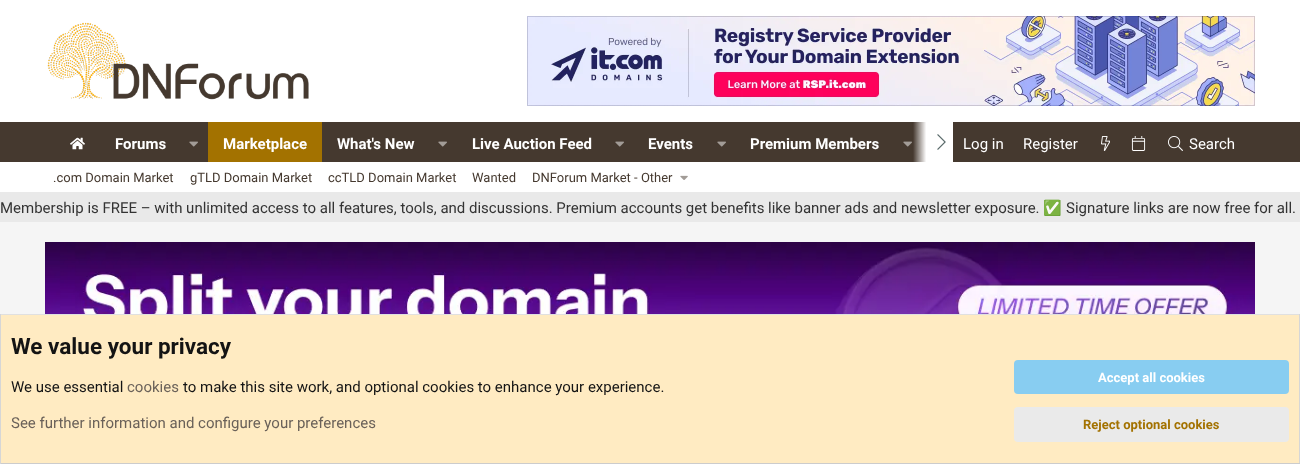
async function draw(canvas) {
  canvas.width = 1300
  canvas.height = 464
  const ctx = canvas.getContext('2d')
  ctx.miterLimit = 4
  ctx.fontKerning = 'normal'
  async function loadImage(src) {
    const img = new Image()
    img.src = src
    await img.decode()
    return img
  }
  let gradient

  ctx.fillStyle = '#f5f5f5'
  ctx.fillRect(0, 0, 1300, 464)
  ctx.fillStyle = '#fff'
  ctx.fillRect(0, 0, 1300, 122)
  ctx.drawImage(await loadImage('image0.png'), 47, 22, 262, 78)
  ctx.drawImage(await loadImage('image1.png'), 527, 16, 728, 90)
  ctx.fillStyle = '#45392f'
  ctx.fillRect(0, 122, 1300, 40)
  ctx.drawImage(await loadImage('image2.png'), 70, 137, 15, 13)
  ctx.font = 'bold 15px Roboto'
  ctx.fillStyle = '#fff'
  ctx.fillText('Forums', 115, 149)
  ctx.drawImage(await loadImage('image3.png'), 189, 141, 9, 6)
  ctx.fillStyle = '#a37200'
  ctx.fillRect(208, 122, 114, 40)
  ctx.fillStyle = '#fff'
  ctx.fillText('Marketplace', 223, 149)
  ctx.fillText('What\'s New', 337, 149)
  ctx.drawImage(await loadImage('image3.png'), 438, 141, 9, 6)
  ctx.fillText('Live Auction Feed', 472, 149)
  ctx.drawImage(await loadImage('image3.png'), 615, 141, 9, 6)
  ctx.fillText('Events', 648, 149)
  ctx.drawImage(await loadImage('image3.png'), 717, 141, 9, 6)
  ctx.fillText('Premium Members', 750, 149)
  ctx.drawImage(await loadImage('image3.png'), 903, 141, 9, 6)
  gradient = ctx.createLinearGradient(913, 142, 953, 142)
  gradient.addColorStop(0, '#ffffff00')
  gradient.addColorStop(0.33, '#fff')
  ctx.fillStyle = gradient
  ctx.fillRect(913, 122, 40, 40)
  ctx.drawImage(await loadImage('image4.png'), 937, 134, 9, 16)
  ctx.font = '15px Roboto'
  ctx.fillStyle = '#fff'
  ctx.fillText('Log in', 963, 149)
  ctx.fillText('Register', 1023, 149)
  ctx.drawImage(await loadImage('image5.png'), 1101, 136, 9, 15)
  ctx.drawImage(await loadImage('image6.png'), 1131, 136, 15, 15)
  ctx.drawImage(await loadImage('image7.png'), 1168, 136, 15, 15)
  ctx.fillText('Search', 1189, 149)
  ctx.fillRect(0, 162, 1300, 30)
  ctx.font = '13px Roboto'
  ctx.fillStyle = '#45392f'
  ctx.fillText('.com Domain Market', 53, 182)
  ctx.fillText('gTLD Domain Market', 190, 182)
  ctx.fillText('ccTLD Domain Market', 328, 182)
  ctx.fillText('Wanted', 472, 182)
  ctx.fillText('DNForum Market - Other', 532, 182)
  ctx.drawImage(await loadImage('image8.png'), 680, 175, 8, 5)
  ctx.fillStyle = '#e9e9e9'
  ctx.fillRect(0, 192, 1300, 30)
  ctx.font = '15px Roboto'
  ctx.fillStyle = '#333'
  ctx.fillText('Membership is FREE – with unlimited access to all features, tools, and discussions. Premium accounts get benefits like banner ads and newsletter exposure.', 0, 213)
  ctx.font = '15px Noto Color Emoji'
  ctx.fillText('✅', 1043, 213)
  ctx.font = '15px Roboto'
  ctx.fillText('Signature links are now free for all.', 1066, 213)
  ctx.drawImage(await loadImage('image9.png'), 45, 242, 1210, 72)
  ctx.fillStyle = '#ffebc2'
  ctx.fillRect(1, 315, 1298, 148)
  ctx.fillStyle = '#e0e0e0'
  ctx.fillRect(0, 314, 1300, 1)
  ctx.fillStyle = '#d6d6d6'
  ctx.fillRect(1299, 314, 1, 150)
  ctx.fillStyle = '#ccc'
  ctx.fillRect(0, 463, 1300, 1)
  ctx.fillStyle = '#d6d6d6'
  ctx.fillRect(0, 314, 1, 150)
  ctx.font = 'bold 22.5px Roboto'
  ctx.fillStyle = '#141414'
  ctx.fillText('We value your privacy', 11, 354)
  ctx.font = '15px Roboto'
  ctx.fillText('We use essential', 11, 392)
  ctx.fillStyle = '#6a6159'
  ctx.fillText('cookies', 127, 392)
  ctx.fillStyle = '#141414'
  ctx.fillText('to make this site work, and optional cookies to enhance your experience.', 183, 392)
  ctx.fillStyle = '#6a6159'
  ctx.fillText('See further information and configure your preferences', 11, 428)
  ctx.fillStyle = '#88cdf1'
  ctx.beginPath()
  ctx.roundRect(1014, 360, 275, 34, 4)
  ctx.fill()
  ctx.font = 'bold 13px Roboto'
  ctx.fillStyle = '#fff'
  ctx.fillText('Accept all cookies', 1098, 382)
  ctx.fillStyle = '#eaeaea'
  ctx.beginPath()
  ctx.roundRect(1014, 407, 275, 35, 4)
  ctx.fill()
  ctx.fillStyle = '#a37200'
  ctx.fillText('Reject optional cookies', 1083, 429)
}

draw(document.querySelector('canvas'))
